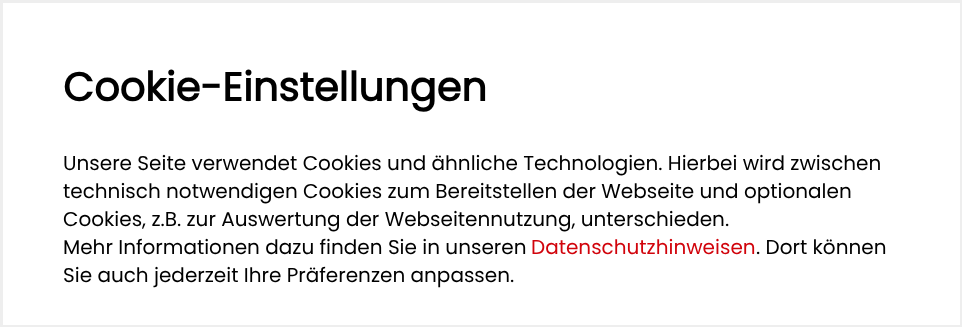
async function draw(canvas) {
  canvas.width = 962
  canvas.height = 327
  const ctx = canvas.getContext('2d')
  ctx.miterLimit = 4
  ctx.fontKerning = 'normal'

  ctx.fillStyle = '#fff'
  ctx.fillRect(0, 0, 962, 327)
  ctx.strokeStyle = '#eee'
  ctx.lineWidth = 3
  ctx.strokeRect(1.5, 1.5, 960, 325)
  ctx.font = 'bold 40px Poppins'
  ctx.fillStyle = '#000'
  ctx.fillText('Cookie-Einstellungen', 63, 101)
  ctx.font = '20px Poppins'
  ctx.fillText('Unsere Seite verwendet Cookies und ähnliche Technologien. Hierbei wird zwischen', 63, 170)
  ctx.fillText('technisch notwendigen Cookies zum Bereitstellen der Webseite und optionalen', 63, 198)
  ctx.fillText('Cookies, z.B. zur Auswertung der Webseitennutzung, unterschieden.', 63, 226)
  ctx.fillText('Mehr Informationen dazu finden Sie in unseren', 63, 254)
  ctx.fillStyle = '#d1040c'
  ctx.fillText('Datenschutzhinweisen', 531, 254)
  ctx.fillStyle = '#000'
  ctx.fillText('. Dort können', 756, 254)
  ctx.fillText('Sie auch jederzeit Ihre Präferenzen anpassen.', 63, 282)
}

draw(document.querySelector('canvas'))
